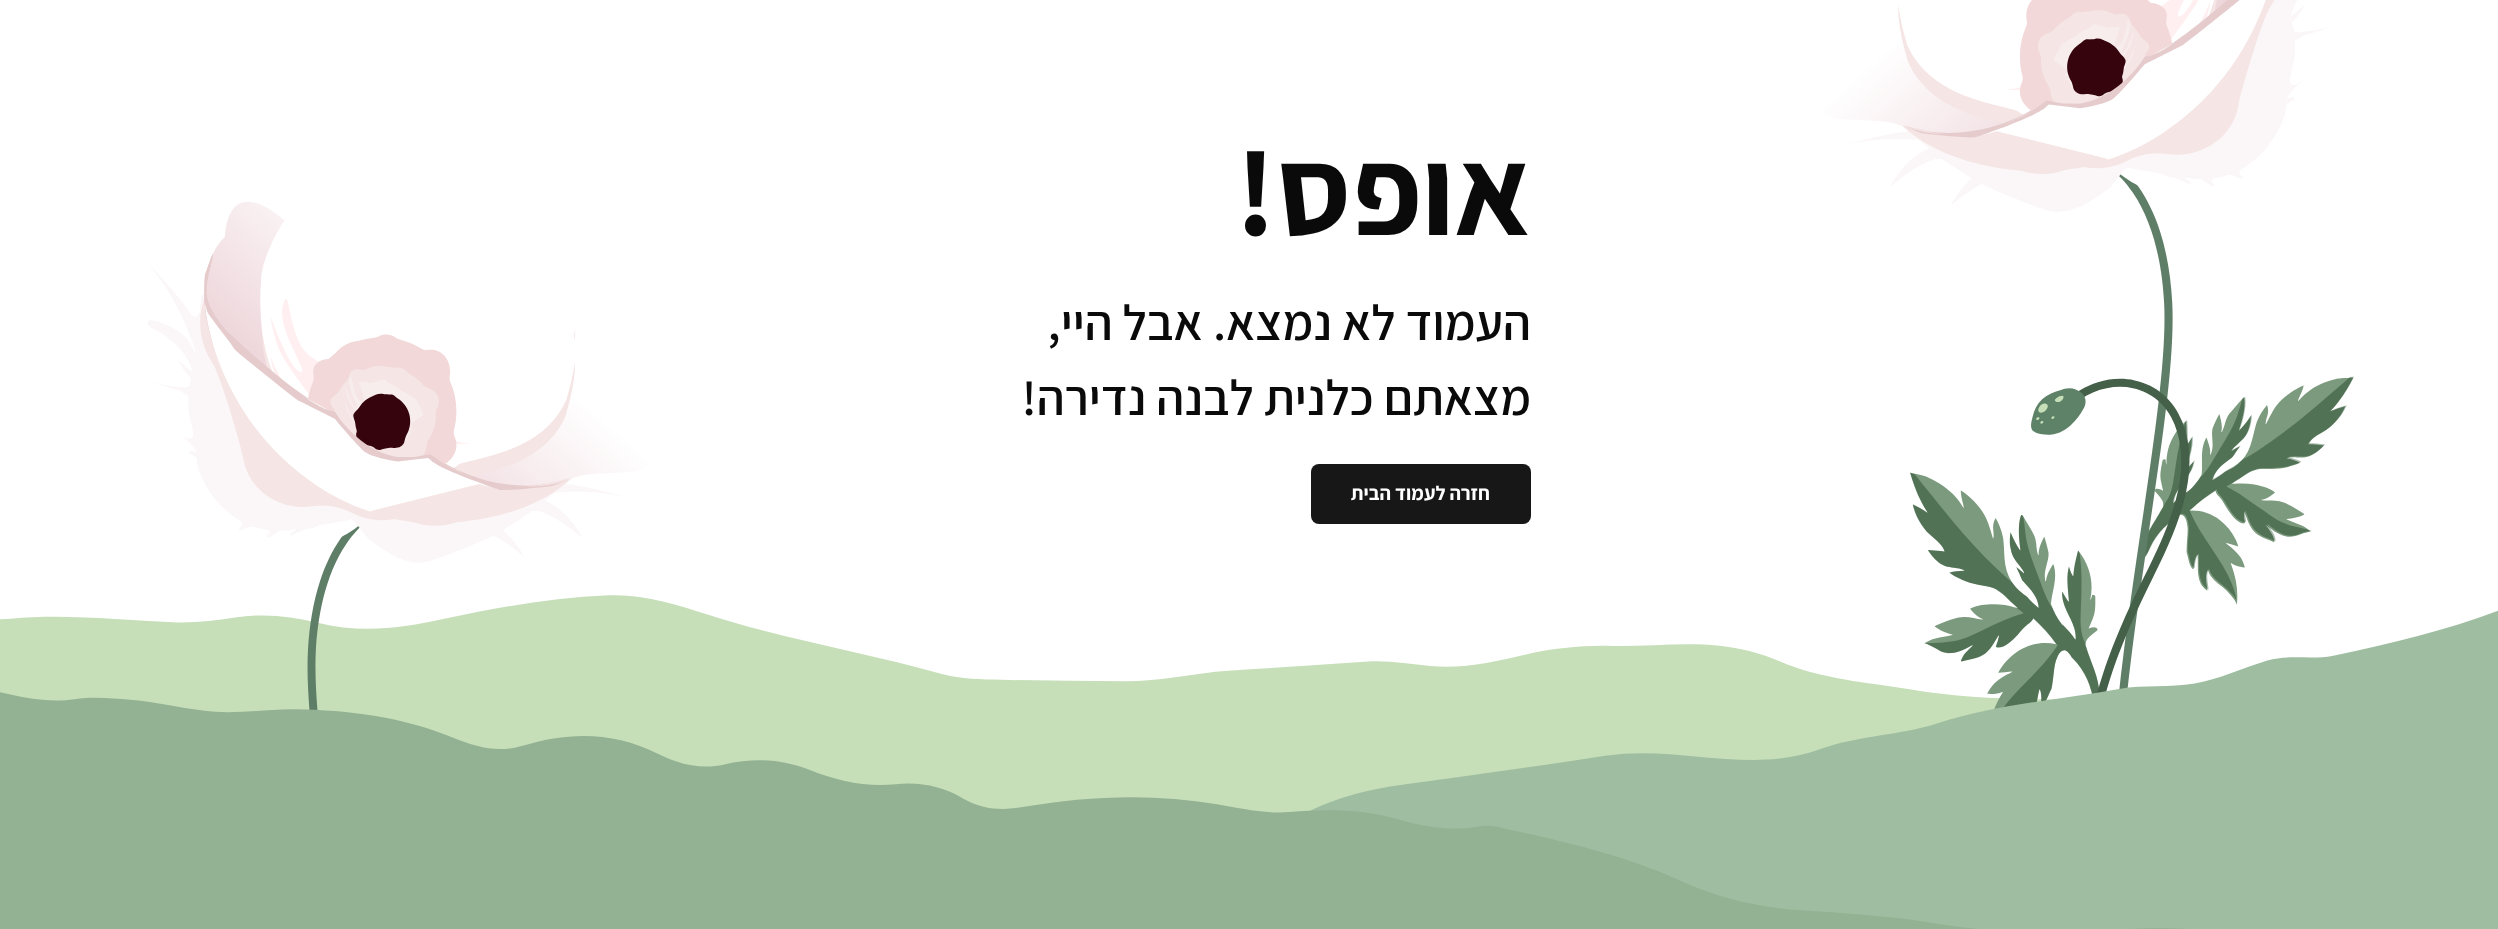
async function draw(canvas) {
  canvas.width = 2498
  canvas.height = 929
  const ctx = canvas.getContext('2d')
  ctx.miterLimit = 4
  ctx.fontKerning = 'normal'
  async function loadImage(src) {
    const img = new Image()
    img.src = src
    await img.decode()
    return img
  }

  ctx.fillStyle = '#fff'
  ctx.fillRect(0, 0, 2498, 929)
  ctx.drawImage(await loadImage('image0.png'), 0, 0, 2498, 929)
  ctx.direction = 'rtl'
  ctx.font = 'bold 125px Assistant'
  ctx.fillStyle = '#0a0a0a'
  ctx.fillText('אופס!', 1531, 235)
  ctx.font = '600 50px Assistant'
  ctx.fillText('העמוד לא נמצא. אבל היי,', 1531, 340)
  ctx.fillText('מצאתם כלנית לבנה נדירה!', 1531, 415)
  ctx.fillStyle = '#171717'
  ctx.beginPath()
  ctx.roundRect(1311, 464, 220, 60, 8)
  ctx.fill()
  ctx.font = 'bold 20px Assistant'
  ctx.fillStyle = '#fff'
  ctx.fillText('חזרה לעמוד הבית', 1490, 500)
}

draw(document.querySelector('canvas'))
